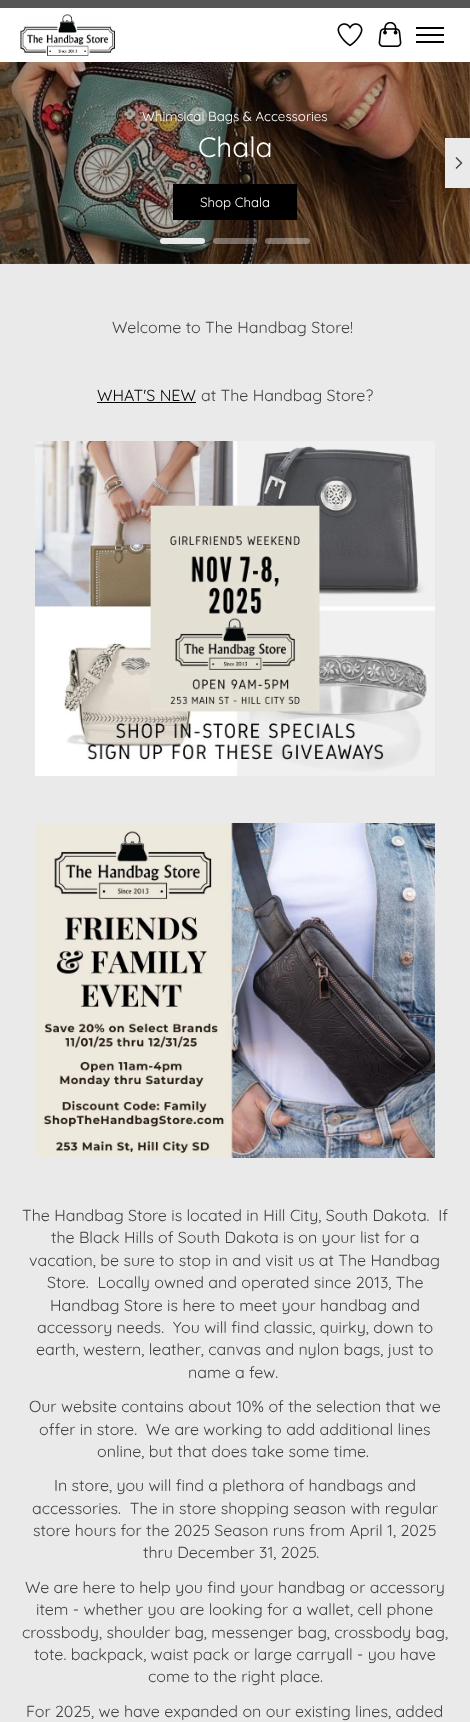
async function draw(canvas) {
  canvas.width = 470
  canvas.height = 1722
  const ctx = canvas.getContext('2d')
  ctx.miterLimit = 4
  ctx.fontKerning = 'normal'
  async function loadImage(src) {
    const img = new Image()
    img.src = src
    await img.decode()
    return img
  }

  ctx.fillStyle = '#eaeaea'
  ctx.fillRect(0, 0, 470, 1722)
  ctx.fillStyle = '#fff'
  ctx.fillRect(0, 8, 470, 54)
  ctx.fillStyle = '#565656'
  ctx.fillRect(0, 0, 470, 8)
  ctx.drawImage(await loadImage('image0.png'), 20, 14, 95, 42)
  ctx.drawImage(await loadImage('image1.png'), 337, 23, 26, 24)
  ctx.drawImage(await loadImage('image2.png'), 378, 22, 24, 25)
  ctx.fillStyle = '#000'
  ctx.fillRect(416, 34, 28, 2)
  ctx.fillRect(416, 27, 28, 2)
  ctx.fillRect(416, 41, 28, 2)
  ctx.drawImage(await loadImage('image3.png'), 0, 62, 470, 202)
  ctx.font = '13.3px Quicksand'
  ctx.fillStyle = '#fff'
  ctx.fillText('Whimsical Bags & Accessories', 142, 121)
  ctx.font = '28px Quicksand'
  ctx.fillText('Chala', 198, 157)
  ctx.fillStyle = '#000'
  ctx.fillRect(173, 184, 124, 36)
  ctx.font = '13.3px Quicksand'
  ctx.fillStyle = '#fff'
  ctx.fillText('Shop Chala', 200, 207)
  ctx.fillStyle = '#eaeaea'
  ctx.fillRect(445, 138, 25, 50)
  ctx.beginPath()
  ctx.moveTo(456, 168.5)
  ctx.lineTo(461.5, 163)
  ctx.lineTo(456, 157.5)
  ctx.strokeStyle = '#414141'
  ctx.lineWidth = 1.4
  ctx.stroke()
  ctx.beginPath()
  ctx.roundRect(160, 238, 45, 6, 3)
  ctx.fill()
  ctx.fillStyle = '#eaeaea66'
  ctx.beginPath()
  ctx.roundRect(213, 238, 44, 6, 3)
  ctx.fill()
  ctx.beginPath()
  ctx.roundRect(265, 238, 45, 6, 3)
  ctx.fill()
  ctx.font = '16px Quicksand'
  ctx.fillStyle = '#414141'
  ctx.fillText('Welcome to The Handbag Store!', 112, 333)
  ctx.fillStyle = '#000'
  ctx.fillText('WHAT\'S NEW', 97, 401)
  ctx.fillRect(97, 402, 99, 1)
  ctx.fillStyle = '#414141'
  ctx.fillText('at The Handbag Store?', 201, 401)
  ctx.drawImage(await loadImage('image4.png'), 35, 441, 400, 335)
  ctx.drawImage(await loadImage('image5.png'), 35, 823, 400, 335)
  ctx.fillText('The Handbag Store is located in Hill City, South Dakota.  If', 22, 1221)
  ctx.fillText('the Black Hills of South Dakota is on your list for a', 51, 1243)
  ctx.fillText('vacation, be sure to stop in and visit us at The Handbag', 29, 1266)
  ctx.fillText('Store.  Locally owned and operated since 2013, The', 47, 1288)
  ctx.fillText('Handbag Store is here to meet your handbag and', 50, 1311)
  ctx.fillText('accessory needs.  You will find classic, quirky, down to', 37, 1333)
  ctx.fillText('earth, western, leather, canvas and nylon bags, just to', 36, 1355)
  ctx.fillText('name a few.', 188, 1378)
  ctx.fillText('Our website contains about 10% of the selection that we', 29, 1412)
  ctx.fillText('offer in store.  We are working to add additional lines', 39, 1435)
  ctx.fillText('online, but that does take some time.', 97, 1457)
  ctx.fillText('In store, you will find a plethora of handbags and', 54, 1491)
  ctx.fillText('accessories.  The in store shopping season with regular', 32, 1514)
  ctx.fillText('store hours for the 2025 Season runs from April 1, 2025', 33, 1536)
  ctx.fillText('thru December 31, 2025.', 143, 1558)
  ctx.fillText('We are here to help you find your handbag or accessory', 25, 1593)
  ctx.fillText('item - whether you are looking for a wallet, cell phone', 36, 1615)
  ctx.fillText('crossbody, shoulder bag, messenger bag, crossbody bag,', 22, 1638)
  ctx.fillText('tote. backpack, waist pack or large carryall - you have', 34, 1660)
  ctx.fillText('come to the right place.', 148, 1682)
  ctx.fillText('For 2025, we have expanded on our existing lines, added', 26, 1717)
}

draw(document.querySelector('canvas'))
